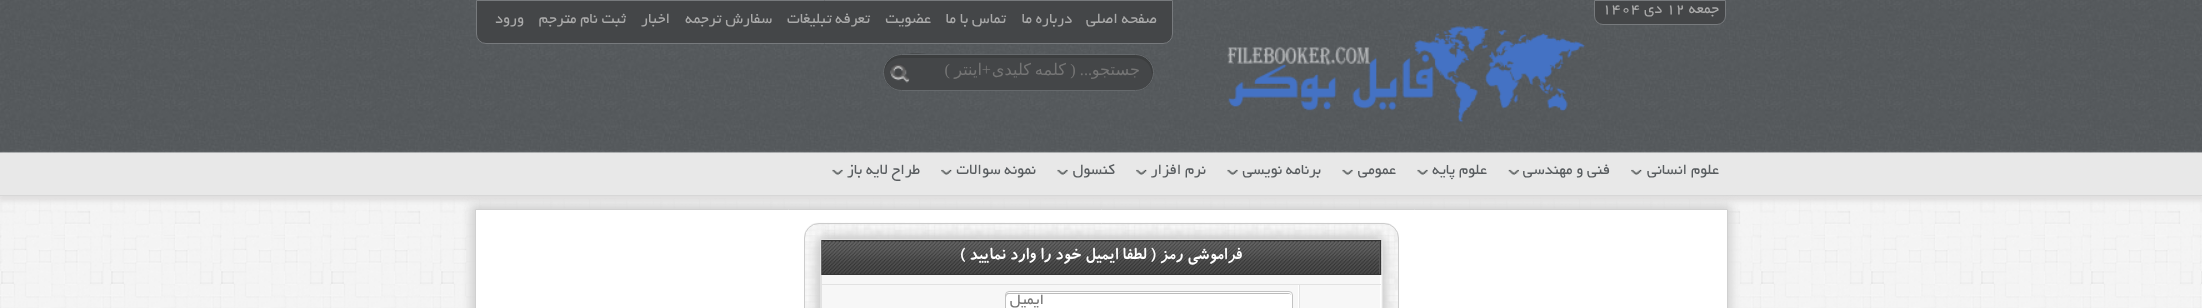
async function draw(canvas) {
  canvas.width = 2202
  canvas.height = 308
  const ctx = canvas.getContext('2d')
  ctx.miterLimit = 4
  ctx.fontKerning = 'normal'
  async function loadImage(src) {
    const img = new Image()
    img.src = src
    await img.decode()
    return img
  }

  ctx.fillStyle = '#fff'
  ctx.fillRect(0, 0, 2202, 308)
  ctx.drawImage(await loadImage('image0.png'), 0, 152, 2202, 156)
  ctx.drawImage(await loadImage('image1.png'), 0, 0, 2202, 153)
  ctx.fillStyle = '#444648'
  ctx.beginPath()
  ctx.roundRect(1594.5, 0.5, 131, 24, [0, 0, 8.5, 8.5])
  ctx.fill()
  ctx.strokeStyle = '#777a7d'
  ctx.stroke()
  ctx.direction = 'rtl'
  ctx.font = '16.25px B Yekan'
  ctx.fillStyle = '#aaa'
  ctx.fillText('جمعه', 1719, 13)
  ctx.direction = 'ltr'
  ctx.fillText('12', 1666, 13)
  ctx.direction = 'rtl'
  ctx.fillText('دی', 1662, 13)
  ctx.direction = 'ltr'
  ctx.fillText('1404', 1602, 13)
  ctx.drawImage(await loadImage('image2.png'), 1227, 26, 358, 97)
  ctx.fillStyle = '#444648'
  ctx.beginPath()
  ctx.roundRect(476.5, 0.5, 696, 43, [0, 0, 9.5, 9.5])
  ctx.fill()
  ctx.stroke()
  ctx.direction = 'rtl'
  ctx.fillStyle = '#aaa'
  ctx.fillText('صفحه اصلی', 1157, 23)
  ctx.fillText('درباره ما', 1072, 23)
  ctx.fillText('تماس با ما', 1006, 23)
  ctx.fillText('عضویت', 931, 23)
  ctx.fillText('تعرفه تبلیغات', 870, 23)
  ctx.fillText('سفارش ترجمه', 772, 23)
  ctx.fillText('اخبار', 670, 23)
  ctx.fillText('ثبت نام مترجم', 626, 23)
  ctx.fillText('ورود', 524, 23)
  ctx.fillStyle = '#444648'
  ctx.beginPath()
  ctx.roundRect(883, 54, 271, 37, 18.5)
  ctx.fill()
  ctx.drawImage(await loadImage('image3.png'), 890, 64, 20, 19)
  ctx.fillStyle = '#3c3e3f'
  ctx.beginPath()
  ctx.moveTo(901, 58)
  ctx.lineTo(1135, 58)
  ctx.bezierCurveTo(1145, 58, 1152, 65, 1152, 75)
  ctx.lineTo(1151, 80)
  ctx.bezierCurveTo(1153, 75, 1154, 70, 1152, 66)
  ctx.bezierCurveTo(1149, 59, 1142, 55, 1136, 55)
  ctx.lineTo(940, 55)
  ctx.bezierCurveTo(929, 55, 882, 46, 884, 74)
  ctx.bezierCurveTo(885, 64, 892, 58, 901, 58)
  ctx.closePath()
  ctx.fill()
  ctx.beginPath()
  ctx.roundRect(883.5, 54.5, 270, 36, 18)
  ctx.strokeStyle = '#666a6d'
  ctx.stroke()
  ctx.font = '16.25px Liberation Serif'
  ctx.fillStyle = '#757575'
  ctx.fillText('... (', 1092, 75)
  ctx.font = '16.25px DejaVu Sans'
  ctx.fillText('جستجو', 1140, 75)
  ctx.fillText('کلمه', 1066, 75)
  ctx.fillText('کلیدی', 1031, 75)
  ctx.font = '16.25px Liberation Serif'
  ctx.fillText('+', 991, 75)
  ctx.font = '16.25px DejaVu Sans'
  ctx.fillText('اینتر', 982, 75)
  ctx.font = '16.25px Liberation Serif'
  ctx.fillText(')', 950, 75)
  ctx.fillStyle = '#e0dfdf'
  ctx.filter = 'blur(2px)'
  ctx.beginPath()
  ctx.rect(-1, 155, 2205, 46)
  ctx.fill()
  ctx.filter = 'none'
  ctx.fillStyle = '#e8e8e8'
  ctx.fillRect(0, 153, 2202, 42)
  ctx.fillStyle = '#d7d7d7'
  ctx.fillRect(0, 195, 2202, 1)
  ctx.drawImage(await loadImage('image4.png'), 1631, 169, 11, 6)
  ctx.font = '16.25px B Yekan'
  ctx.fillStyle = '#585c5f'
  ctx.fillText('علوم انسانی', 1719, 174)
  ctx.drawImage(await loadImage('image5.png'), 1508, 169, 11, 6)
  ctx.fillText('فنی و مهندسی', 1610, 174)
  ctx.drawImage(await loadImage('image6.png'), 1417, 169, 11, 6)
  ctx.fillText('علوم پایه', 1487, 174)
  ctx.drawImage(await loadImage('image7.png'), 1342, 169, 11, 6)
  ctx.fillText('عمومی', 1396, 174)
  ctx.drawImage(await loadImage('image6.png'), 1227, 169, 11, 6)
  ctx.fillText('برنامه نویسی', 1321, 174)
  ctx.drawImage(await loadImage('image4.png'), 1136, 169, 11, 6)
  ctx.fillText('نرم افزار', 1206, 174)
  ctx.drawImage(await loadImage('image7.png'), 1057, 169, 11, 6)
  ctx.fillText('کنسول', 1115, 174)
  ctx.drawImage(await loadImage('image4.png'), 941, 169, 11, 6)
  ctx.fillText('نمونه سوالات', 1036, 174)
  ctx.drawImage(await loadImage('image7.png'), 832, 169, 11, 6)
  ctx.fillText('طراح لایه باز', 920, 174)
  ctx.fillStyle = '#d0d0d0'
  ctx.filter = 'blur(5px)'
  ctx.beginPath()
  ctx.rect(471, 205, 1260, 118)
  ctx.fill()
  ctx.filter = 'none'
  ctx.fillStyle = '#fff'
  ctx.beginPath()
  ctx.rect(475.5, 209.5, 1252, 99)
  ctx.fill()
  ctx.strokeStyle = '#d0d0d0'
  ctx.stroke()
  ctx.drawImage(await loadImage('image8.png'), 804, 222, 595, 86)
  ctx.beginPath()
  ctx.roundRect(804.5, 223.5, 594, 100, 14.5)
  ctx.strokeStyle = '#ccc'
  ctx.stroke()
  ctx.fillStyle = '#ccc'
  ctx.filter = 'blur(4px)'
  ctx.beginPath()
  ctx.roundRect(816, 235, 570, 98, 13)
  ctx.fill()
  ctx.filter = 'none'
  ctx.fillStyle = '#f7f7f7'
  ctx.fillRect(822, 240, 560, 68)
  ctx.strokeStyle = '#e2e2e2'
  ctx.strokeRect(820.5, 239.5, 562, 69)
  ctx.drawImage(await loadImage('image9.png'), 822, 240, 560, 35)
  ctx.fillStyle = '#555'
  ctx.fillRect(1379, 241, 1, 33)
  ctx.fillStyle = '#363636'
  ctx.fillRect(821, 240, 560, 1)
  ctx.fillRect(1380, 240, 1, 35)
  ctx.fillRect(821, 274, 560, 1)
  ctx.fillStyle = '#646464'
  ctx.fillRect(821, 240, 1, 35)
  ctx.font = 'bold 18.75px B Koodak'
  ctx.fillStyle = '#fff'
  ctx.fillText('فراموشی رمز ( لطفا ایمیل خود را وارد نمایید )', 1242, 259)
  ctx.fillStyle = '#e2e2e2'
  ctx.fillRect(821, 284, 560, 1)
  ctx.fillStyle = '#fff'
  ctx.fillRect(1380, 275, 1, 9)
  ctx.fillStyle = '#e2e2e2'
  ctx.fillRect(821, 275, 1, 33)
  ctx.fillStyle = '#fff'
  ctx.fillRect(1380, 285, 1, 23)
  ctx.fillStyle = '#e2e2e2'
  ctx.fillRect(1299, 285, 1, 23)
  ctx.fillStyle = '#fff'
  ctx.fillRect(1298, 285, 1, 23)
  ctx.beginPath()
  ctx.roundRect(1005, 291, 288, 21, 4)
  ctx.fill()
  ctx.fillStyle = '#bbb'
  ctx.beginPath()
  ctx.moveTo(1009, 294)
  ctx.lineTo(1290, 294)
  ctx.lineTo(1291, 295)
  ctx.bezierCurveTo(1291, 294, 1290, 293, 1288, 293)
  ctx.lineTo(1008, 293)
  ctx.bezierCurveTo(1006, 293, 1006, 296, 1006, 298)
  ctx.bezierCurveTo(1006, 296, 1007, 294, 1009, 294)
  ctx.closePath()
  ctx.moveTo(1007, 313)
  ctx.lineTo(1006, 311)
  ctx.closePath()
  ctx.fill('evenodd')
  ctx.beginPath()
  ctx.roundRect(1005.5, 291.5, 287, 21, 3.5)
  ctx.strokeStyle = '#c2c2c2'
  ctx.stroke()
  ctx.font = '16.25px B Yekan'
  ctx.fillStyle = '#757575'
  ctx.fillText('ایمیل', 1044, 304)
}

draw(document.querySelector('canvas'))
